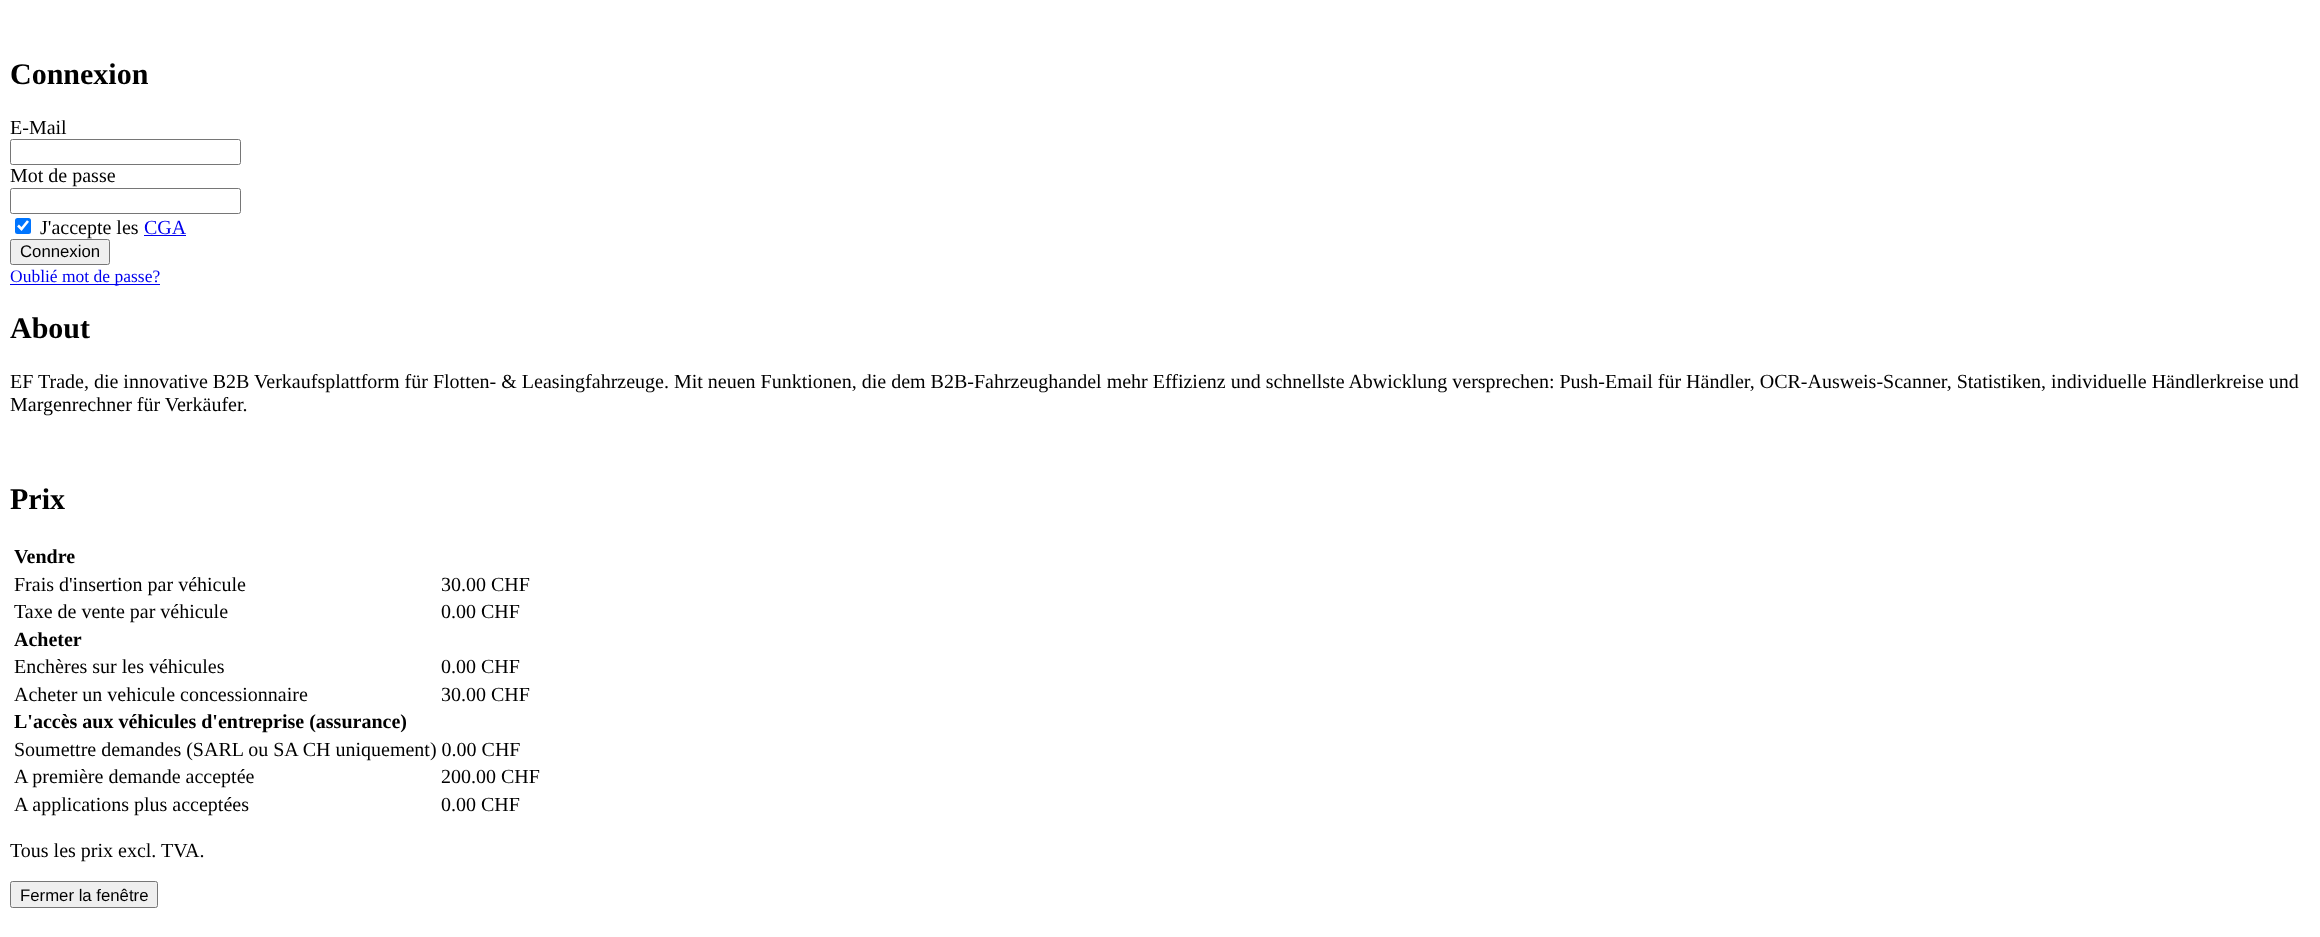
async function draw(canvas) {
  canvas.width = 2320
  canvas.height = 937
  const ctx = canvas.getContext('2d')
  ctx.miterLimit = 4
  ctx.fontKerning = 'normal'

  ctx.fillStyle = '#fff'
  ctx.fillRect(0, 0, 2320, 937)
  ctx.font = 'bold 30px Liberation Serif'
  ctx.fillStyle = '#000'
  ctx.fillText('Connexion', 10, 84)
  ctx.font = '20px Liberation Serif'
  ctx.fillText('E-Mail', 10, 134)
  ctx.beginPath()
  ctx.roundRect(10.5, 139.5, 230, 25, 2)
  ctx.strokeStyle = '#767676'
  ctx.stroke()
  ctx.fillText('Mot de passe', 10, 182)
  ctx.beginPath()
  ctx.roundRect(10.5, 188.5, 230, 25, 2)
  ctx.stroke()
  ctx.fillStyle = '#0075ff'
  ctx.beginPath()
  ctx.roundRect(15, 218, 16, 16, 2.5)
  ctx.fill()
  ctx.beginPath()
  ctx.moveTo(18, 225.5)
  ctx.lineTo(21.5, 229)
  ctx.lineTo(28, 221)
  ctx.strokeStyle = '#fff'
  ctx.lineWidth = 2.6
  ctx.stroke()
  ctx.fillStyle = '#000'
  ctx.fillText('J\'accepte les', 40, 234)
  ctx.fillStyle = '#00e'
  ctx.fillText('CGA', 144, 234)
  ctx.fillRect(144, 235, 42, 1)
  ctx.fillStyle = '#efefef'
  ctx.beginPath()
  ctx.roundRect(10.5, 239.5, 99, 25, 2)
  ctx.fill()
  ctx.strokeStyle = '#767676'
  ctx.lineWidth = 1
  ctx.stroke()
  ctx.font = '16.75px Liberation Sans'
  ctx.fillStyle = '#000'
  ctx.fillText('Connexion', 20, 257)
  ctx.fillStyle = '#00e'
  ctx.fillRect(10, 284, 150, 1)
  ctx.font = '17.5px Liberation Serif'
  ctx.fillText('Oublié mot de passe?', 10, 282)
  ctx.font = 'bold 30px Liberation Serif'
  ctx.fillStyle = '#000'
  ctx.fillText('About', 10, 338)
  ctx.font = '20px Liberation Serif'
  ctx.fillText('EF Trade, die innovative B2B Verkaufsplattform für Flotten- & Leasingfahrzeuge. Mit neuen Funktionen, die dem B2B-Fahrzeughandel mehr Effizienz und schnellste Abwicklung versprechen: Push-Email für Händler, OCR-Ausweis-Scanner, Statistiken, individuelle Händlerkreise und', 10, 388)
  ctx.fillText('Margenrechner für Verkäufer.', 10, 411)
  ctx.font = 'bold 30px Liberation Serif'
  ctx.fillText('Prix', 10, 509)
  ctx.font = 'bold 20px Liberation Serif'
  ctx.fillText('Vendre', 14, 563)
  ctx.font = '20px Liberation Serif'
  ctx.fillText('Frais d\'insertion par véhicule', 14, 591)
  ctx.fillText('30.00 CHF', 441, 591)
  ctx.fillText('Taxe de vente par véhicule', 14, 618)
  ctx.fillText('0.00 CHF', 441, 618)
  ctx.font = 'bold 20px Liberation Serif'
  ctx.fillText('Acheter', 14, 646)
  ctx.font = '20px Liberation Serif'
  ctx.fillText('Enchères sur les véhicules', 14, 673)
  ctx.fillText('0.00 CHF', 441, 673)
  ctx.fillText('Acheter un vehicule concessionnaire', 14, 701)
  ctx.fillText('30.00 CHF', 441, 701)
  ctx.font = 'bold 20px Liberation Serif'
  ctx.fillText('L\'accès aux véhicules d\'entreprise (assurance)', 14, 728)
  ctx.font = '20px Liberation Serif'
  ctx.fillText('Soumettre demandes (SARL ou SA CH uniquement) 0.00 CHF', 14, 756)
  ctx.fillText('A première demande acceptée', 14, 783)
  ctx.fillText('200.00 CHF', 441, 783)
  ctx.fillText('A applications plus acceptées', 14, 811)
  ctx.fillText('0.00 CHF', 441, 811)
  ctx.fillText('Tous les prix excl. TVA.', 10, 857)
  ctx.fillStyle = '#efefef'
  ctx.beginPath()
  ctx.roundRect(10.5, 881.5, 147, 26, 2)
  ctx.fill()
  ctx.stroke()
  ctx.font = '16.75px Liberation Sans'
  ctx.fillStyle = '#000'
  ctx.fillText('Fermer la fenêtre', 20, 901)
}

draw(document.querySelector('canvas'))
